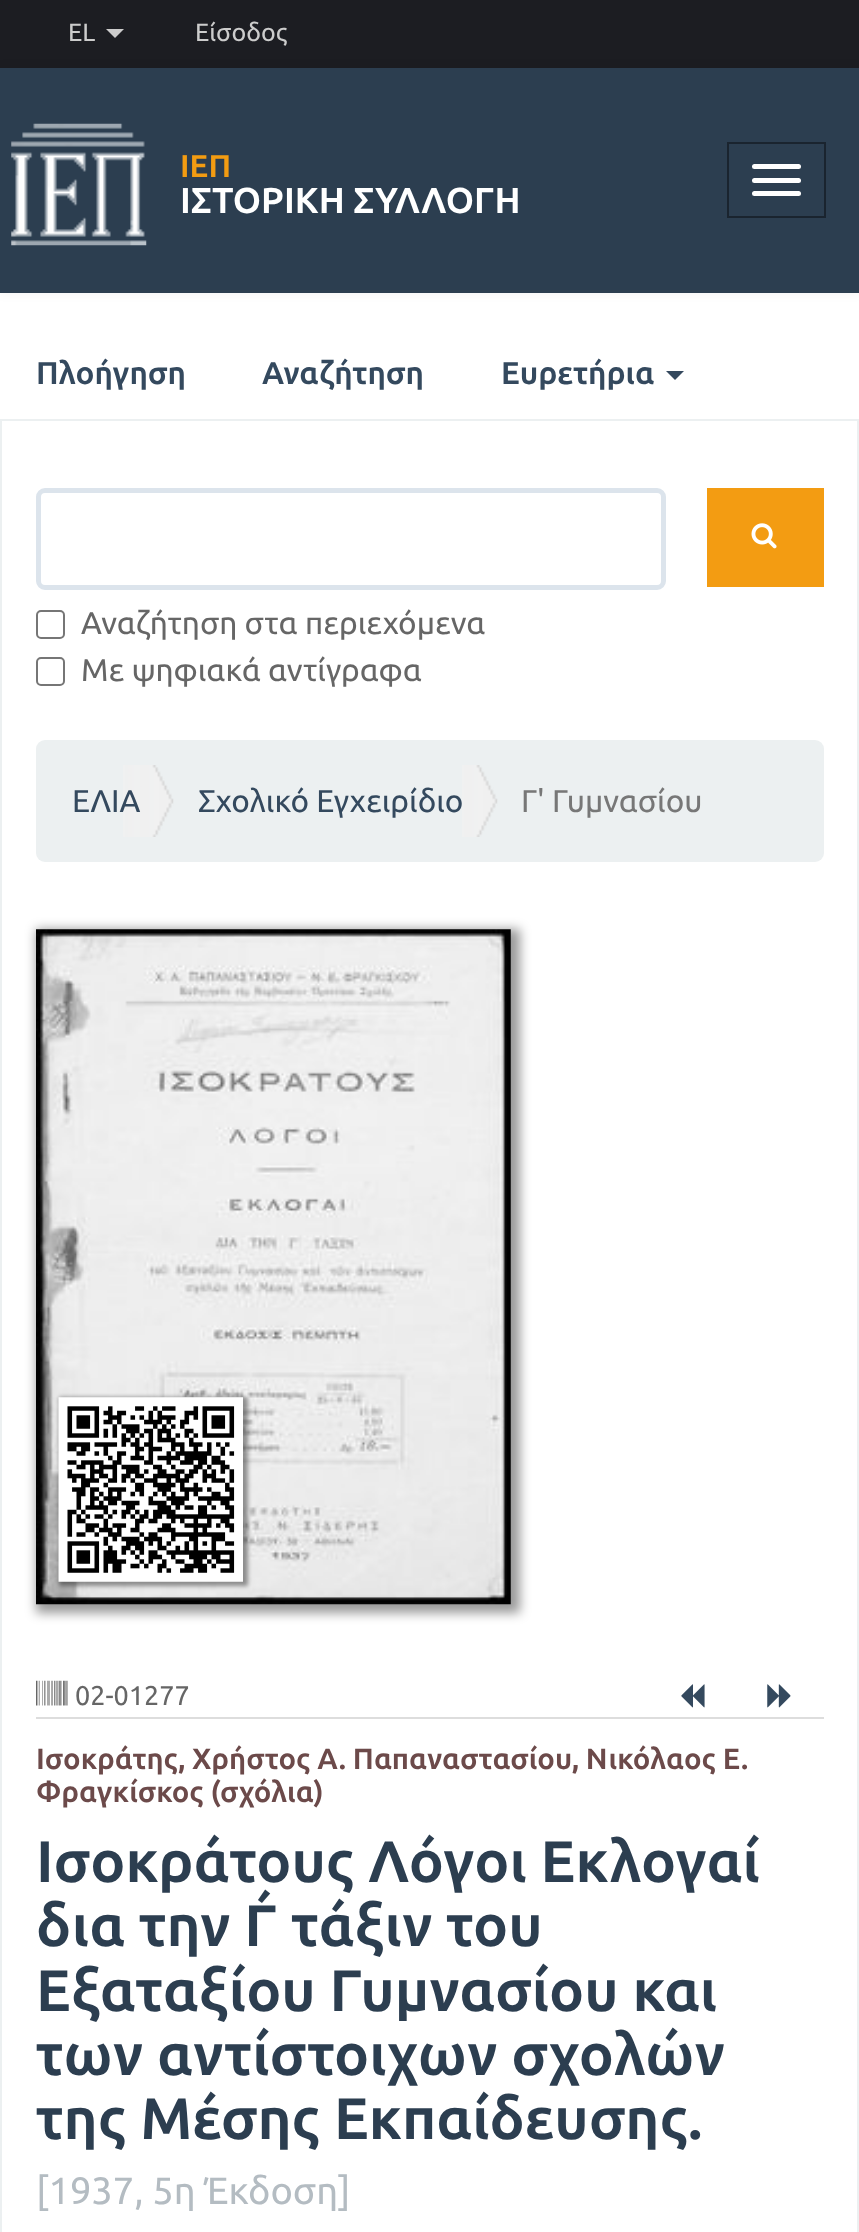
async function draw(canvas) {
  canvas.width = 859
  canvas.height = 2232
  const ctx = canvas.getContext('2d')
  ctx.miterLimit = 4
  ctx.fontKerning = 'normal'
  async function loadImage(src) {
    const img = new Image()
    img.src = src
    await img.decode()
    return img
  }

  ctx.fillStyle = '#fff'
  ctx.fillRect(0, 0, 859, 2232)
  ctx.fillStyle = '#1c1d22'
  ctx.fillRect(0, 0, 859, 68)
  ctx.font = '25px Ubuntu'
  ctx.fillStyle = '#ccc'
  ctx.fillText('EL', 68, 41)
  ctx.beginPath()
  ctx.moveTo(106, 29)
  ctx.lineTo(124, 29)
  ctx.lineTo(115, 38)
  ctx.closePath()
  ctx.fill()
  ctx.fillText('Είσοδος', 195, 41)
  ctx.fillStyle = '#0000000d'
  ctx.filter = 'blur(5.5px)'
  ctx.beginPath()
  ctx.rect(0, 68, 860, 225)
  ctx.fill()
  ctx.filter = 'none'
  ctx.fillStyle = '#2c3e50'
  ctx.fillRect(0, 68, 859, 225)
  ctx.drawImage(await loadImage('image0.png'), 11, 123, 136, 123)
  ctx.font = 'bold 31.5px Ubuntu'
  ctx.fillStyle = '#f39c12'
  ctx.fillText('ΙΕΠ', 180, 177)
  ctx.font = 'bold 36px Ubuntu'
  ctx.fillStyle = '#fff'
  ctx.fillText('ΙΣΤΟΡΙΚΗ ΣΥΛΛΟΓΗ', 180, 213)
  ctx.strokeStyle = '#1a242f'
  ctx.lineWidth = 2
  ctx.strokeRect(728, 143, 97, 74)
  ctx.beginPath()
  ctx.roundRect(752, 164, 49, 5, 2.5)
  ctx.fill()
  ctx.beginPath()
  ctx.roundRect(752, 178, 49, 5, 2.5)
  ctx.fill()
  ctx.beginPath()
  ctx.roundRect(752, 191, 49, 5, 2.5)
  ctx.fill()
  ctx.fillStyle = '#ecf0f1'
  ctx.fillRect(0, 419, 859, 2)
  ctx.font = 'bold 31.5px Ubuntu'
  ctx.fillStyle = '#34495e'
  ctx.fillText('Πλοήγηση', 36, 384)
  ctx.fillText('Αναζήτηση', 262, 384)
  ctx.fillText('Ευρετήρια', 501, 384)
  ctx.beginPath()
  ctx.moveTo(666, 371)
  ctx.lineTo(684, 371)
  ctx.lineTo(675, 380)
  ctx.closePath()
  ctx.fill()
  ctx.fillStyle = '#ecf0f1'
  ctx.fillRect(857, 421, 2, 1811)
  ctx.fillRect(0, 421, 2, 1811)
  ctx.beginPath()
  ctx.roundRect(38.5, 490.5, 625, 97, 6.5)
  ctx.strokeStyle = '#dce4ec'
  ctx.lineWidth = 5
  ctx.stroke()
  ctx.fillStyle = '#f39c12'
  ctx.fillRect(707, 488, 117, 99)
  ctx.drawImage(await loadImage('image1.png'), 751, 523, 26, 26)
  ctx.beginPath()
  ctx.roundRect(37, 611, 27, 27, 4)
  ctx.strokeStyle = '#767676'
  ctx.lineWidth = 2
  ctx.stroke()
  ctx.font = '31.5px Ubuntu'
  ctx.fillStyle = '#666'
  ctx.fillText('Αναζήτηση στα περιεχόμενα', 81, 634)
  ctx.beginPath()
  ctx.roundRect(37, 658, 27, 27, 4)
  ctx.stroke()
  ctx.fillText('Με ψηφιακά αντίγραφα', 81, 681)
  ctx.fillStyle = '#ecf0f1'
  ctx.beginPath()
  ctx.roundRect(36, 740, 788, 122, 9)
  ctx.fill()
  ctx.drawImage(await loadImage('image2.png'), 123, 765, 51, 72)
  ctx.fillStyle = '#34495e'
  ctx.fillText('ΕΛΙΑ', 72, 812)
  ctx.drawImage(await loadImage('image3.png'), 462, 765, 36, 72)
  ctx.fillText('Σχολικό Εγχειρίδιο', 198, 812)
  ctx.fillStyle = '#777'
  ctx.fillText('Γ\' Γυμνασίου', 521, 812)
  ctx.fillStyle = '#00000066'
  ctx.filter = 'blur(5.5px)'
  ctx.beginPath()
  ctx.rect(36, 929, 484, 684)
  ctx.fill()
  ctx.filter = 'none'
  ctx.drawImage(await loadImage('image4.png'), 36, 929, 475, 676)
  ctx.filter = 'blur(2px)'
  ctx.beginPath()
  ctx.rect(59, 1397, 189, 189)
  ctx.fill()
  ctx.filter = 'none'
  ctx.drawImage(await loadImage('image5.png'), 58, 1397, 185, 185)
  ctx.fillStyle = '#ddd'
  ctx.fillRect(36, 1717, 788, 2)
  ctx.drawImage(await loadImage('image6.png'), 36, 1680, 32, 26)
  ctx.font = '27px Ubuntu'
  ctx.fillStyle = '#666'
  ctx.fillText('02-01277', 75, 1705)
  ctx.drawImage(await loadImage('image7.png'), 681, 1684, 24, 24)
  ctx.drawImage(await loadImage('image8.png'), 767, 1684, 24, 24)
  ctx.font = 'bold 29.25px Ubuntu'
  ctx.fillStyle = '#6c4a4a'
  ctx.fillText('Ισοκράτης, Χρήστος Α. Παπαναστασίου, Νικόλαος Ε.', 36, 1769)
  ctx.fillText('Φραγκίσκος (σχόλια)', 36, 1802)
  ctx.font = 'bold 58.5px Ubuntu'
  ctx.fillStyle = '#2c3e50'
  ctx.fillText('Ισοκράτους Λόγοι Εκλογαί', 36, 1882)
  ctx.fillText('δια την Γ΄ τάξιν του', 36, 1946)
  ctx.fillText('Εξαταξίου Γυμνασίου και', 36, 2011)
  ctx.fillText('των αντίστοιχων σχολών', 36, 2075)
  ctx.fillText('της Μέσης Εκπαίδευσης.', 36, 2139)
  ctx.font = '38px Ubuntu'
  ctx.fillStyle = '#b4bcc2'
  ctx.fillText('[1937, 5η Έκδοση]', 36, 2204)
}

draw(document.querySelector('canvas'))
